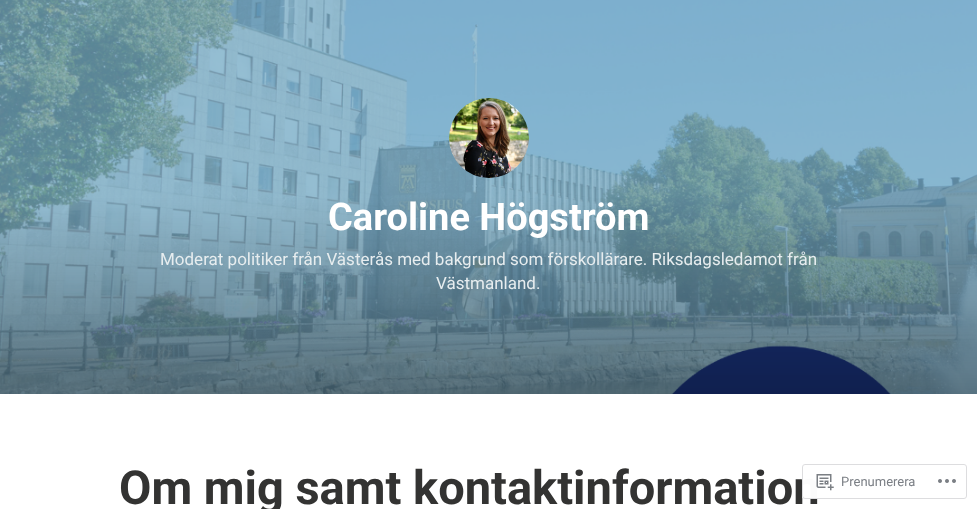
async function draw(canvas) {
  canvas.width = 977
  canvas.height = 509
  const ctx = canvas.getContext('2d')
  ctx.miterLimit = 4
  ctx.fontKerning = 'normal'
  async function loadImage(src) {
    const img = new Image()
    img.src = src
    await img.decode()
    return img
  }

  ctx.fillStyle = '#fff'
  ctx.fillRect(0, 0, 977, 509)
  ctx.drawImage(await loadImage('image0.png'), 0, 0, 977, 394)
  ctx.drawImage(await loadImage('image1.png'), 449, 98, 80, 80)
  ctx.font = 'bold 38px Roboto'
  ctx.fillText('Caroline Högström', 328, 230)
  ctx.font = '17px Roboto'
  ctx.fillStyle = '#e7edef'
  ctx.fillText('Moderat politiker från Västerås med bakgrund som förskollärare. Riksdagsledamot från', 160, 265)
  ctx.fillText('Västmanland.', 436, 289)
  ctx.font = 'bold 47px Roboto'
  ctx.fillStyle = '#333332'
  ctx.fillText('Om mig samt kontaktinformation', 119, 504)
  ctx.fillStyle = '#fffffffa'
  ctx.beginPath()
  ctx.roundRect(802, 464, 165, 35, 3)
  ctx.fill()
  ctx.beginPath()
  ctx.roundRect(802.5, 464.5, 164, 34, 2.5)
  ctx.strokeStyle = '#dcdcdefa'
  ctx.stroke()
  ctx.drawImage(await loadImage('image2.png'), 816, 474, 18, 17)
  ctx.font = '13px Roboto'
  ctx.fillStyle = '#7b7f85'
  ctx.fillText('Prenumerera', 841, 486)
  ctx.drawImage(await loadImage('image3.png'), 938, 479, 18, 4)
}

draw(document.querySelector('canvas'))
